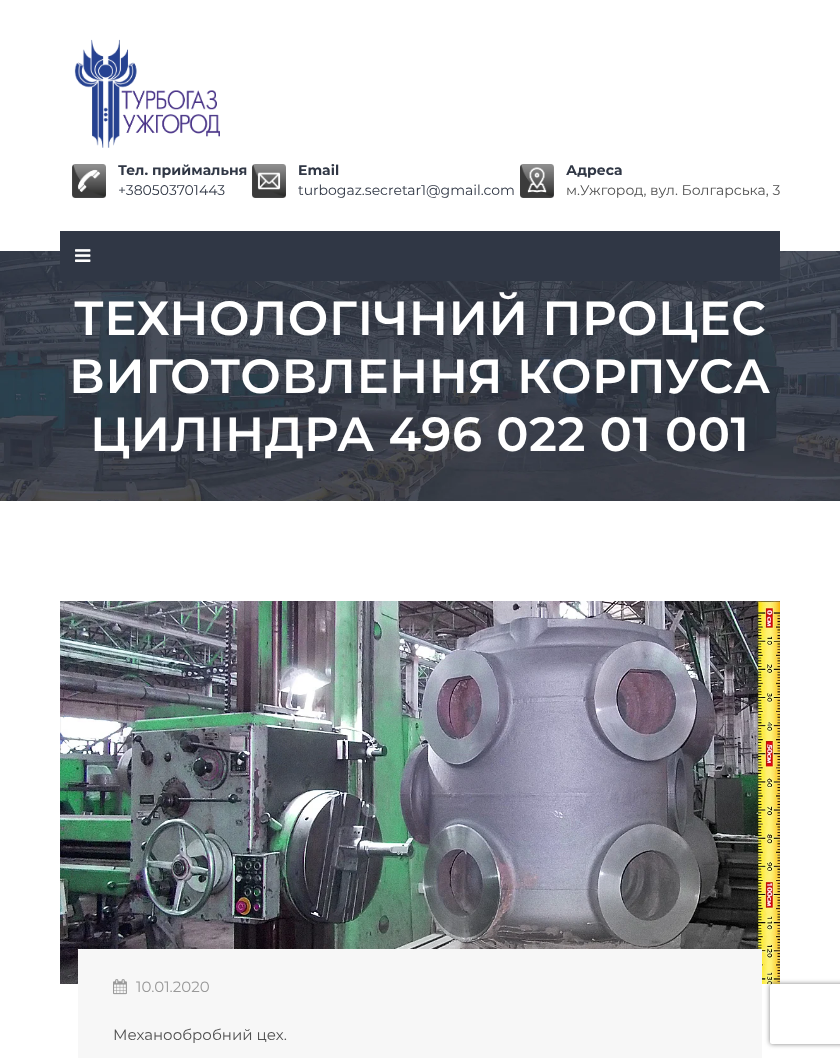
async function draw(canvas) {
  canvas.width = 840
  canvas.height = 1058
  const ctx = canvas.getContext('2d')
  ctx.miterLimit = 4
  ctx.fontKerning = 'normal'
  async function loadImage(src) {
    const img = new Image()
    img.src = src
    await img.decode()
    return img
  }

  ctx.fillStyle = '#fff'
  ctx.fillRect(0, 0, 840, 1058)
  ctx.drawImage(await loadImage('image0.png'), 74, 39, 146, 109)
  ctx.drawImage(await loadImage('image1.png'), 72, 164, 34, 34)
  ctx.font = 'bold 14px Montserrat'
  ctx.fillStyle = '#303745'
  ctx.fillText('Тел. приймальня', 118, 175)
  ctx.font = '14px Montserrat'
  ctx.fillText('+380503701443', 118, 195)
  ctx.drawImage(await loadImage('image2.png'), 252, 164, 34, 34)
  ctx.font = 'bold 14px Montserrat'
  ctx.fillText('Email', 298, 175)
  ctx.font = '14px Montserrat'
  ctx.fillText('turbogaz.secretar1@gmail.com', 298, 195)
  ctx.drawImage(await loadImage('image3.png'), 520, 164, 34, 34)
  ctx.font = 'bold 14px Montserrat'
  ctx.fillText('Адреса', 566, 175)
  ctx.font = '14px Montserrat'
  ctx.fillStyle = '#505050'
  ctx.fillText('м.Ужгород, вул. Болгарська, 3', 566, 195)
  ctx.drawImage(await loadImage('image5.png'), 0, 251, 840, 250)
  ctx.fillStyle = '#303745'
  ctx.fillRect(60, 231, 720, 50)
  ctx.drawImage(await loadImage('image4.png'), 75, 249, 16, 13)
  ctx.letterSpacing = '0.5px'
  ctx.font = '600 48px Montserrat'
  ctx.fillStyle = '#fff'
  ctx.fillText('ТЕХНОЛОГІЧНИЙ ПРОЦЕС', 74, 335)
  ctx.fillText('ВИГОТОВЛЕННЯ КОРПУСА', 69, 393)
  ctx.fillText('ЦИЛІНДРА 496 022 01 001', 90, 451)
  ctx.drawImage(await loadImage('image6.png'), 60, 601, 720, 383)
  ctx.fillStyle = '#f7f7f7'
  ctx.fillRect(78, 949, 684, 109)
  ctx.drawImage(await loadImage('image7.png'), 113, 979, 14, 16)
  ctx.letterSpacing = '0px'
  ctx.font = '15px Montserrat'
  ctx.fillStyle = '#999'
  ctx.fillText('10.01.2020', 136, 992)
  ctx.fillStyle = '#505050'
  ctx.fillText('Механообробний цех.', 113, 1040)
  ctx.save()
  ctx.beginPath()
  ctx.moveTo(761, 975)
  ctx.lineTo(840, 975)
  ctx.lineTo(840, 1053)
  ctx.lineTo(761, 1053)
  ctx.closePath()
  ctx.moveTo(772, 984)
  ctx.lineTo(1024, 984)
  ctx.bezierCurveTo(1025, 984, 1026, 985, 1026, 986)
  ctx.lineTo(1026, 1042)
  ctx.bezierCurveTo(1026, 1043, 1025, 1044, 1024, 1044)
  ctx.lineTo(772, 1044)
  ctx.bezierCurveTo(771, 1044, 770, 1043, 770, 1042)
  ctx.lineTo(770, 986)
  ctx.bezierCurveTo(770, 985, 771, 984, 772, 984)
  ctx.closePath()
  ctx.clip('evenodd')
  ctx.fillStyle = '#808080'
  ctx.filter = 'blur(2.5px)'
  ctx.beginPath()
  ctx.roundRect(770, 984, 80, 60, 2)
  ctx.fill()
  ctx.filter = 'none'
  ctx.restore()
}

draw(document.querySelector('canvas'))
